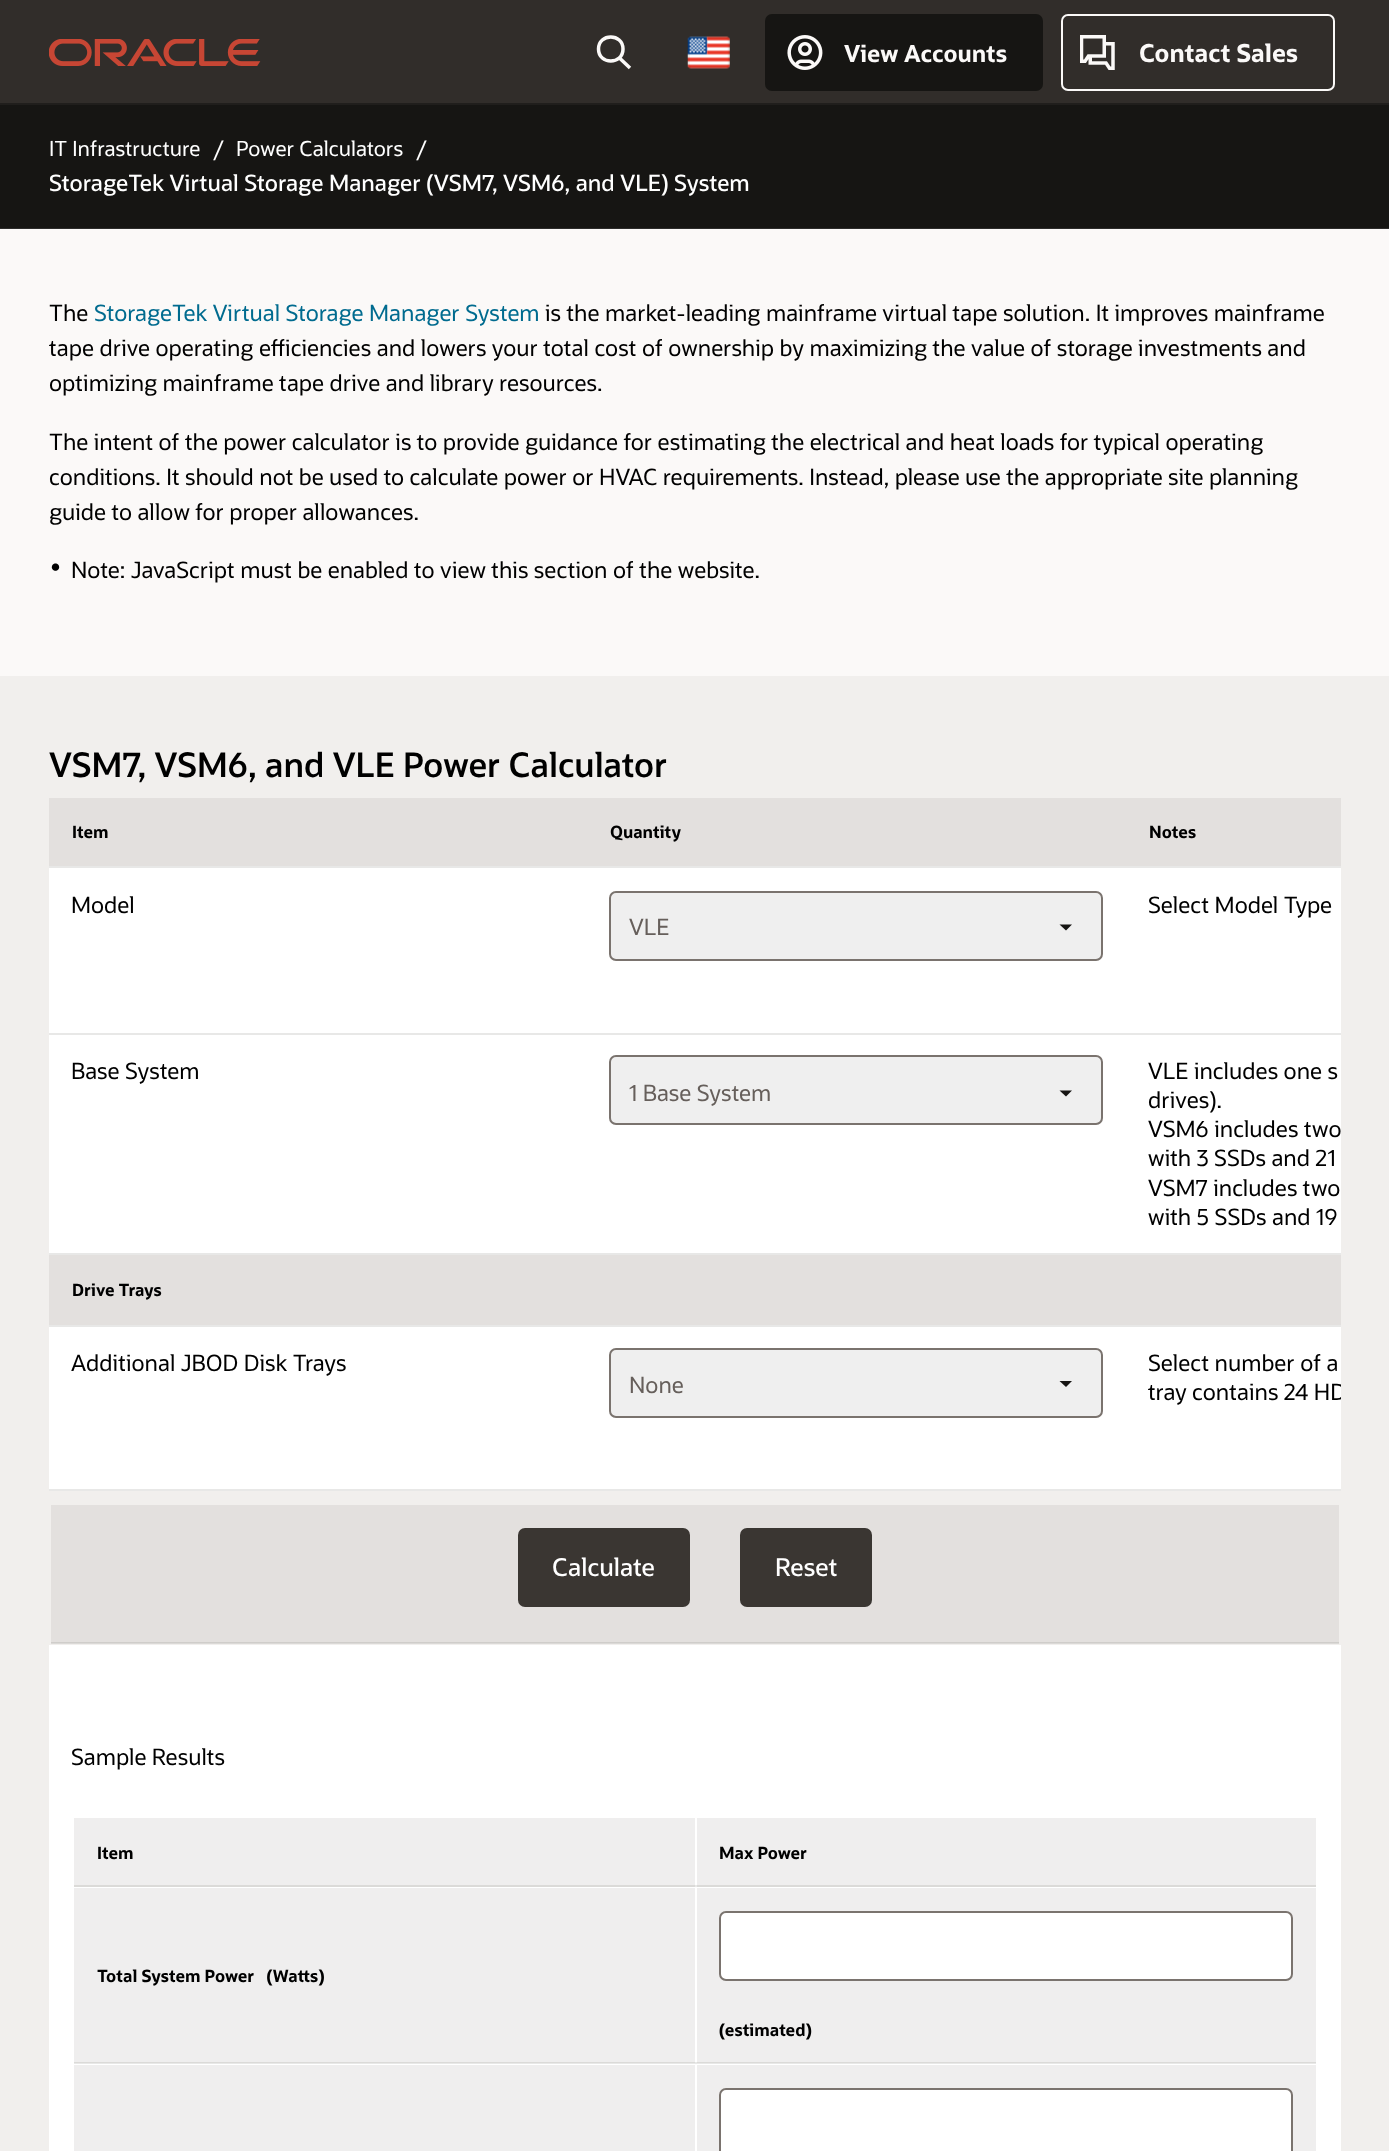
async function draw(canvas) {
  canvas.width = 1389
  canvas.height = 2151
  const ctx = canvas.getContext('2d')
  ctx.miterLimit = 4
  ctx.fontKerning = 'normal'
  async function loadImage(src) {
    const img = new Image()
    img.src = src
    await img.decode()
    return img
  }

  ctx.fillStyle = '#fbf9f8'
  ctx.fillRect(0, 0, 1389, 2151)
  ctx.fillStyle = '#312d2a'
  ctx.fillRect(0, 0, 1389, 103)
  ctx.drawImage(await loadImage('image0.png'), 49, 39, 212, 27)
  ctx.beginPath()
  ctx.moveTo(619.5, 58)
  ctx.lineTo(630, 68)
  ctx.moveTo(623, 49)
  ctx.bezierCurveTo(623, 65, 598.5, 65, 598.5, 49)
  ctx.bezierCurveTo(598.5, 33, 623, 33, 623, 49)
  ctx.closePath()
  ctx.strokeStyle = '#fbf9f8'
  ctx.lineWidth = 3.5
  ctx.stroke()
  ctx.drawImage(await loadImage('image1.png'), 687, 36, 43, 33)
  ctx.fillStyle = '#161513'
  ctx.beginPath()
  ctx.roundRect(765, 14, 278, 77, 7)
  ctx.fill()
  ctx.drawImage(await loadImage('image2.png'), 787, 35, 36, 35)
  ctx.font = 'bold 23.25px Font'
  ctx.fillStyle = '#fbf9f8'
  ctx.fillText('View Accounts', 844, 62)
  ctx.drawImage(await loadImage('image3.png'), 1080, 35, 35, 35)
  ctx.beginPath()
  ctx.roundRect(1062, 15, 272, 75, 6)
  ctx.lineWidth = 2
  ctx.stroke()
  ctx.font = 'bold 24.5px Font'
  ctx.fillText('Contact Sales', 1139, 62)
  ctx.fillStyle = '#201e1c'
  ctx.fillRect(0, 103, 1389, 2)
  ctx.fillStyle = '#161513'
  ctx.fillRect(0, 105, 1389, 123)
  ctx.fillStyle = '#2d2c2b'
  ctx.fillRect(0, 228, 1389, 1)
  ctx.font = '20.75px Font'
  ctx.fillStyle = '#fff'
  ctx.fillText('IT Infrastructure', 49, 156)
  ctx.fillText('/', 213, 156)
  ctx.fillText('Power Calculators', 236, 156)
  ctx.fillText('/', 416, 156)
  ctx.font = '500 22.45px Font'
  ctx.fillText('StorageTek Virtual Storage Manager (VSM7, VSM6, and VLE) System', 49, 191)
  ctx.font = '22.45px Font'
  ctx.fillStyle = '#000'
  ctx.fillText('The', 49, 321)
  ctx.fillStyle = '#006b8f'
  ctx.fillText('StorageTek Virtual Storage Manager System', 94, 321)
  ctx.fillStyle = '#000'
  ctx.fillText('is the market-leading mainframe virtual tape solution. It improves mainframe', 545, 321)
  ctx.fillText('tape drive operating efficiencies and lowers your total cost of ownership by maximizing the value of storage investments and', 49, 356)
  ctx.fillText('optimizing mainframe tape drive and library resources.', 49, 391)
  ctx.fillText('The intent of the power calculator is to provide guidance for estimating the electrical and heat loads for typical operating', 49, 450)
  ctx.fillText('conditions. It should not be used to calculate power or HVAC requirements. Instead, please use the appropriate site planning', 49, 485)
  ctx.fillText('guide to allow for proper allowances.', 49, 520)
  ctx.drawImage(await loadImage('image4.png'), 51, 563, 9, 8)
  ctx.fillText('Note: JavaScript must be enabled to view this section of the website.', 71, 578)
  ctx.fillStyle = '#f1efed'
  ctx.fillRect(0, 676, 1389, 1475)
  ctx.fillStyle = '#e3e0de'
  ctx.fillRect(51, 1505, 1288, 137)
  ctx.font = '600 33.75px Font'
  ctx.fillStyle = '#000'
  ctx.fillText('VSM7, VSM6, and VLE Power Calculator', 49, 777)
  ctx.fillStyle = '#e8e8e7'
  ctx.fillRect(49, 866, 1292, 2)
  ctx.fillStyle = '#e3e0de'
  ctx.fillRect(49, 798, 1292, 68)
  ctx.font = 'bold 16.8px Font'
  ctx.fillStyle = '#000'
  ctx.fillText('Item', 72, 838)
  ctx.fillText('Quantity', 610, 838)
  ctx.fillText('Notes', 1149, 838)
  ctx.fillStyle = '#e8e8e7'
  ctx.fillRect(49, 1033, 1292, 2)
  ctx.fillStyle = '#fff'
  ctx.fillRect(49, 868, 1292, 165)
  ctx.font = '22.45px Font'
  ctx.fillStyle = '#000'
  ctx.fillText('Model', 71, 913)
  ctx.fillText('Select Model Type', 1148, 913)
  ctx.fillStyle = '#efefef'
  ctx.beginPath()
  ctx.roundRect(610, 892, 492, 68, 6)
  ctx.fill()
  ctx.strokeStyle = '#7a736e'
  ctx.stroke()
  ctx.fillStyle = '#665f5b'
  ctx.fillText('VLE', 629, 935)
  ctx.fillStyle = '#161513'
  ctx.beginPath()
  ctx.moveTo(1059.5, 924.5)
  ctx.lineTo(1066, 930.5)
  ctx.lineTo(1072, 924.5)
  ctx.closePath()
  ctx.fill()
  ctx.fillStyle = '#e8e8e7'
  ctx.fillRect(49, 1253, 1292, 2)
  ctx.fillStyle = '#fff'
  ctx.fillRect(49, 1035, 1292, 218)
  ctx.fillStyle = '#000'
  ctx.fillText('Base System', 71, 1079)
  ctx.fillStyle = '#efefef'
  ctx.beginPath()
  ctx.roundRect(610, 1056, 492, 68, 6)
  ctx.fill()
  ctx.stroke()
  ctx.fillStyle = '#665f5b'
  ctx.fillText('1 Base System', 629, 1101)
  ctx.fillStyle = '#161513'
  ctx.beginPath()
  ctx.moveTo(1059.5, 1090.5)
  ctx.lineTo(1066, 1096.5)
  ctx.lineTo(1072, 1090.5)
  ctx.closePath()
  ctx.fill()
  ctx.fillStyle = '#000'
  ctx.fillText('VLE includes one s', 1148, 1079)
  ctx.fillText('drives).', 1148, 1108)
  ctx.fillText('VSM6 includes two', 1148, 1137)
  ctx.fillText('with 3 SSDs and 21', 1148, 1166)
  ctx.fillText('VSM7 includes two', 1148, 1196)
  ctx.fillText('with 5 SSDs and 19', 1148, 1225)
  ctx.fillStyle = '#e8e8e7'
  ctx.fillRect(49, 1325, 1292, 2)
  ctx.fillStyle = '#e3e0de'
  ctx.fillRect(49, 1255, 1292, 70)
  ctx.font = 'bold 16.8px Font'
  ctx.fillStyle = '#000'
  ctx.fillText('Drive Trays', 72, 1296)
  ctx.fillStyle = '#e8e8e7'
  ctx.fillRect(49, 1489, 1292, 2)
  ctx.fillStyle = '#fff'
  ctx.fillRect(49, 1327, 1292, 162)
  ctx.font = '22.45px Font'
  ctx.fillStyle = '#000'
  ctx.fillText('Additional JBOD Disk Trays', 71, 1371)
  ctx.fillStyle = '#efefef'
  ctx.beginPath()
  ctx.roundRect(610, 1349, 492, 68, 6)
  ctx.fill()
  ctx.stroke()
  ctx.fillStyle = '#665f5b'
  ctx.fillText('None', 629, 1393)
  ctx.fillStyle = '#161513'
  ctx.beginPath()
  ctx.moveTo(1059.5, 1381)
  ctx.lineTo(1066, 1387)
  ctx.lineTo(1072, 1381)
  ctx.closePath()
  ctx.fill()
  ctx.fillStyle = '#000'
  ctx.fillText('Select number of a', 1148, 1371)
  ctx.save()
  ctx.beginPath()
  ctx.rect(49, 798, 1292, 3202)
  ctx.clip()
  ctx.fillText('tray contains 24 HD', 1148, 1400)
  ctx.restore()
  ctx.fillStyle = '#dbd9d7'
  ctx.fillRect(51, 1643, 1288, 1)
  ctx.fillStyle = '#cfcdca'
  ctx.fillRect(51, 1642, 1288, 1)
  ctx.fillStyle = '#3a3632'
  ctx.beginPath()
  ctx.roundRect(518, 1528, 172, 79, 7)
  ctx.fill()
  ctx.font = '500 24.5px Font'
  ctx.fillStyle = '#fff'
  ctx.fillText('Calculate', 552, 1576)
  ctx.fillStyle = '#3a3632'
  ctx.beginPath()
  ctx.roundRect(740, 1528, 132, 79, 7)
  ctx.fill()
  ctx.fillStyle = '#fff'
  ctx.fillText('Reset', 775, 1576)
  ctx.fillRect(49, 1645, 1292, 506)
  ctx.font = '22.45px Font'
  ctx.fillStyle = '#000'
  ctx.fillText('Sample Results', 71, 1765)
  ctx.fillStyle = '#efeeee'
  ctx.fillRect(697, 1888, 619, 174)
  ctx.fillRect(74, 1888, 621, 174)
  ctx.fillRect(697, 1818, 619, 67)
  ctx.fillRect(74, 1818, 621, 67)
  ctx.fillStyle = '#e8e8e7'
  ctx.fillRect(695, 1885, 2, 2)
  ctx.fillStyle = '#dbdad8'
  ctx.fillRect(697, 1885, 619, 2)
  ctx.fillRect(74, 1885, 621, 2)
  ctx.font = 'bold 16.8px Font'
  ctx.fillStyle = '#000'
  ctx.fillText('Item', 97, 1859)
  ctx.fillText('Max Power', 719, 1859)
  ctx.fillStyle = '#e8e8e7'
  ctx.fillRect(74, 2062, 1242, 2)
  ctx.fillStyle = '#dbdad8'
  ctx.fillRect(697, 2062, 619, 1)
  ctx.fillRect(74, 2062, 621, 1)
  ctx.fillStyle = '#000'
  ctx.fillText('Total System Power   (Watts)', 97, 1982)
  ctx.fillStyle = '#fff'
  ctx.beginPath()
  ctx.roundRect(720, 1912, 572, 68, 6)
  ctx.fill()
  ctx.stroke()
  ctx.fillStyle = '#000'
  ctx.fillText('(estimated)', 719, 2036)
  ctx.fillStyle = '#efeeee'
  ctx.fillRect(74, 2065, 621, 86)
  ctx.fillRect(697, 2065, 619, 86)
  ctx.fillStyle = '#fff'
  ctx.beginPath()
  ctx.roundRect(720, 2089, 572, 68, 6)
  ctx.fill()
  ctx.stroke()
}

draw(document.querySelector('canvas'))
